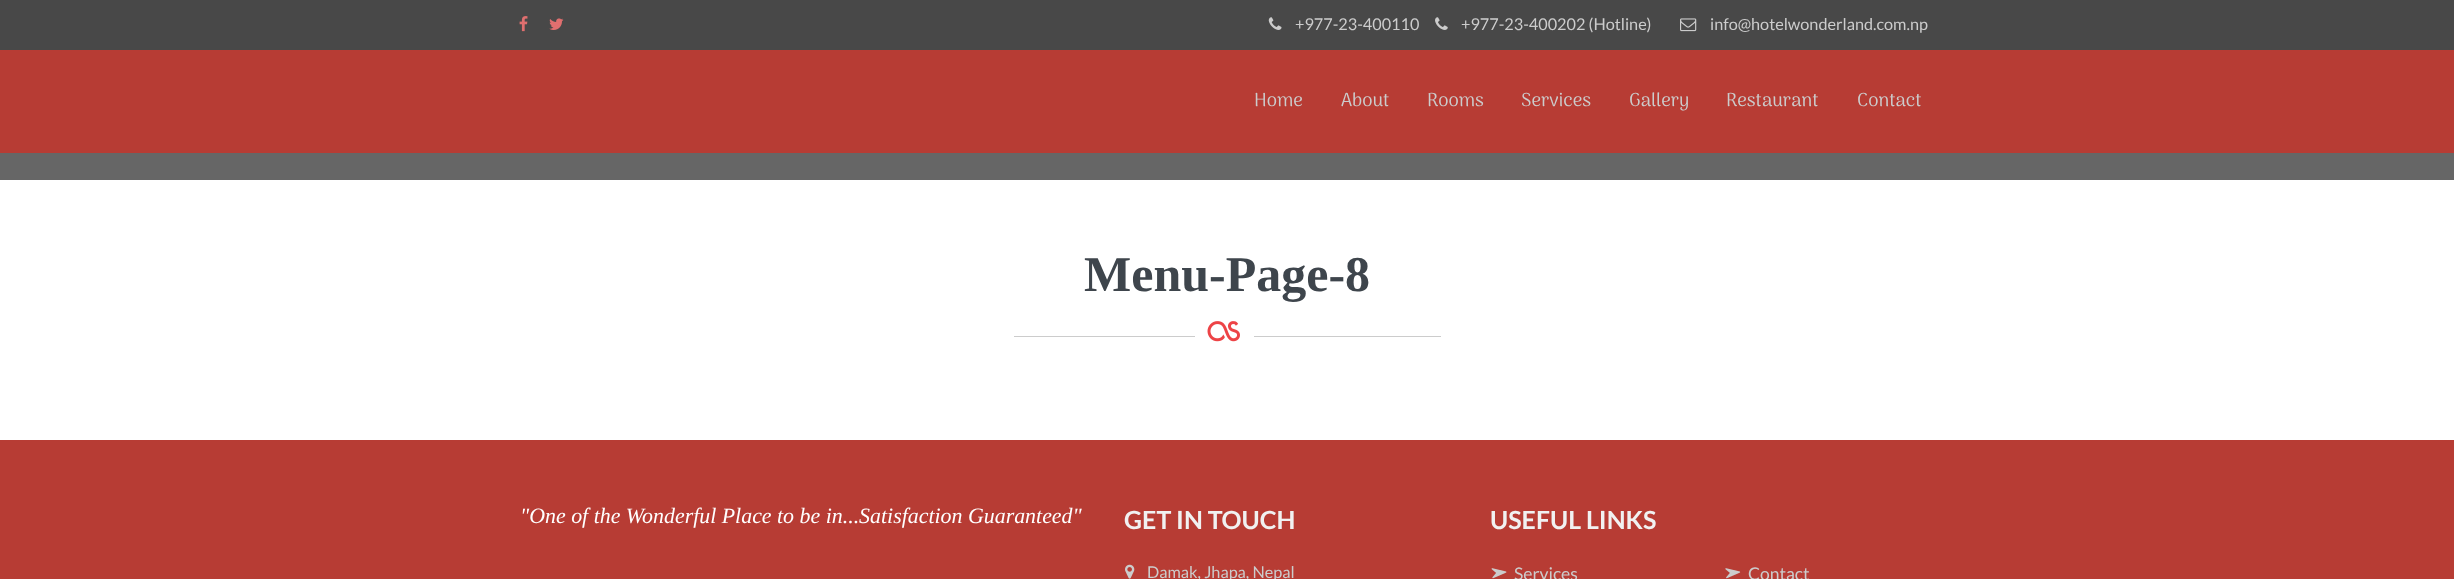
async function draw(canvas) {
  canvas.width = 2454
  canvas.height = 579
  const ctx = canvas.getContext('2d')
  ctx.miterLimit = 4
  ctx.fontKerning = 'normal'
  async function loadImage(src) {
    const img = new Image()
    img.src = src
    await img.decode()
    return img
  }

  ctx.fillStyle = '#fff'
  ctx.fillRect(0, 0, 2454, 579)
  ctx.fillStyle = '#484848'
  ctx.fillRect(0, 0, 2454, 50)
  ctx.drawImage(await loadImage('image0.png'), 519, 16, 9, 16)
  ctx.drawImage(await loadImage('image1.png'), 549, 18, 15, 12)
  ctx.drawImage(await loadImage('image2.png'), 1268, 17, 14, 13)
  ctx.font = '16.25px Lato'
  ctx.fillStyle = '#ccc'
  ctx.fillText('+977-23-400110', 1295, 30)
  ctx.drawImage(await loadImage('image3.png'), 1435, 17, 13, 13)
  ctx.fillText('+977-23-400202 (Hotline)', 1461, 30)
  ctx.drawImage(await loadImage('image4.png'), 1680, 18, 17, 14)
  ctx.fillText('info@hotelwonderland.com.np', 1710, 30)
  ctx.fillStyle = '#b73c34'
  ctx.fillRect(0, 50, 2454, 103)
  ctx.font = '18.75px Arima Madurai'
  ctx.fillStyle = '#ccc'
  ctx.fillText('Home', 1254, 106)
  ctx.fillText('About', 1341, 106)
  ctx.fillText('Rooms', 1427, 106)
  ctx.fillText('Services', 1521, 106)
  ctx.fillText('Gallery', 1629, 106)
  ctx.fillText('Restaurant', 1726, 106)
  ctx.fillText('Contact', 1857, 106)
  ctx.fillStyle = '#666'
  ctx.fillRect(0, 153, 2454, 27)
  ctx.font = 'bold 50px Liberation Serif'
  ctx.fillStyle = '#3e454c'
  ctx.fillText('Menu-Page-8', 1084, 291)
  ctx.fillStyle = '#ccc'
  ctx.fillRect(1014, 336, 427, 1)
  ctx.fillStyle = '#fff'
  ctx.fillRect(1195, 336, 59, 1)
  ctx.drawImage(await loadImage('image5.png'), 1207, 321, 33, 21)
  ctx.fillStyle = '#b73c34'
  ctx.fillRect(0, 440, 2454, 139)
  ctx.font = 'italic 21.9px Liberation Serif'
  ctx.fillStyle = '#fff'
  ctx.fillText('"One of the Wonderful Place to be in...Satisfaction Guaranteed"', 520, 523)
  ctx.font = 'bold 25px Lato'
  ctx.fillStyle = '#f1f1f1'
  ctx.fillText('GET IN TOUCH', 1124, 529)
  ctx.drawImage(await loadImage('image6.png'), 1125, 564, 10, 15)
  ctx.font = '16.25px Lato'
  ctx.fillStyle = '#ccc'
  ctx.fillText('Damak, Jhapa, Nepal', 1147, 578)
  ctx.font = 'bold 25px Lato'
  ctx.fillStyle = '#f1f1f1'
  ctx.fillText('USEFUL LINKS', 1490, 529)
  ctx.drawImage(await loadImage('image7.png'), 1491, 568, 16, 11)
  ctx.font = '17.5px Lato'
  ctx.fillStyle = '#ccc'
  ctx.fillText('Services', 1514, 580)
  ctx.drawImage(await loadImage('image8.png'), 1725, 568, 16, 11)
  ctx.fillText('Contact', 1748, 580)
}

draw(document.querySelector('canvas'))
